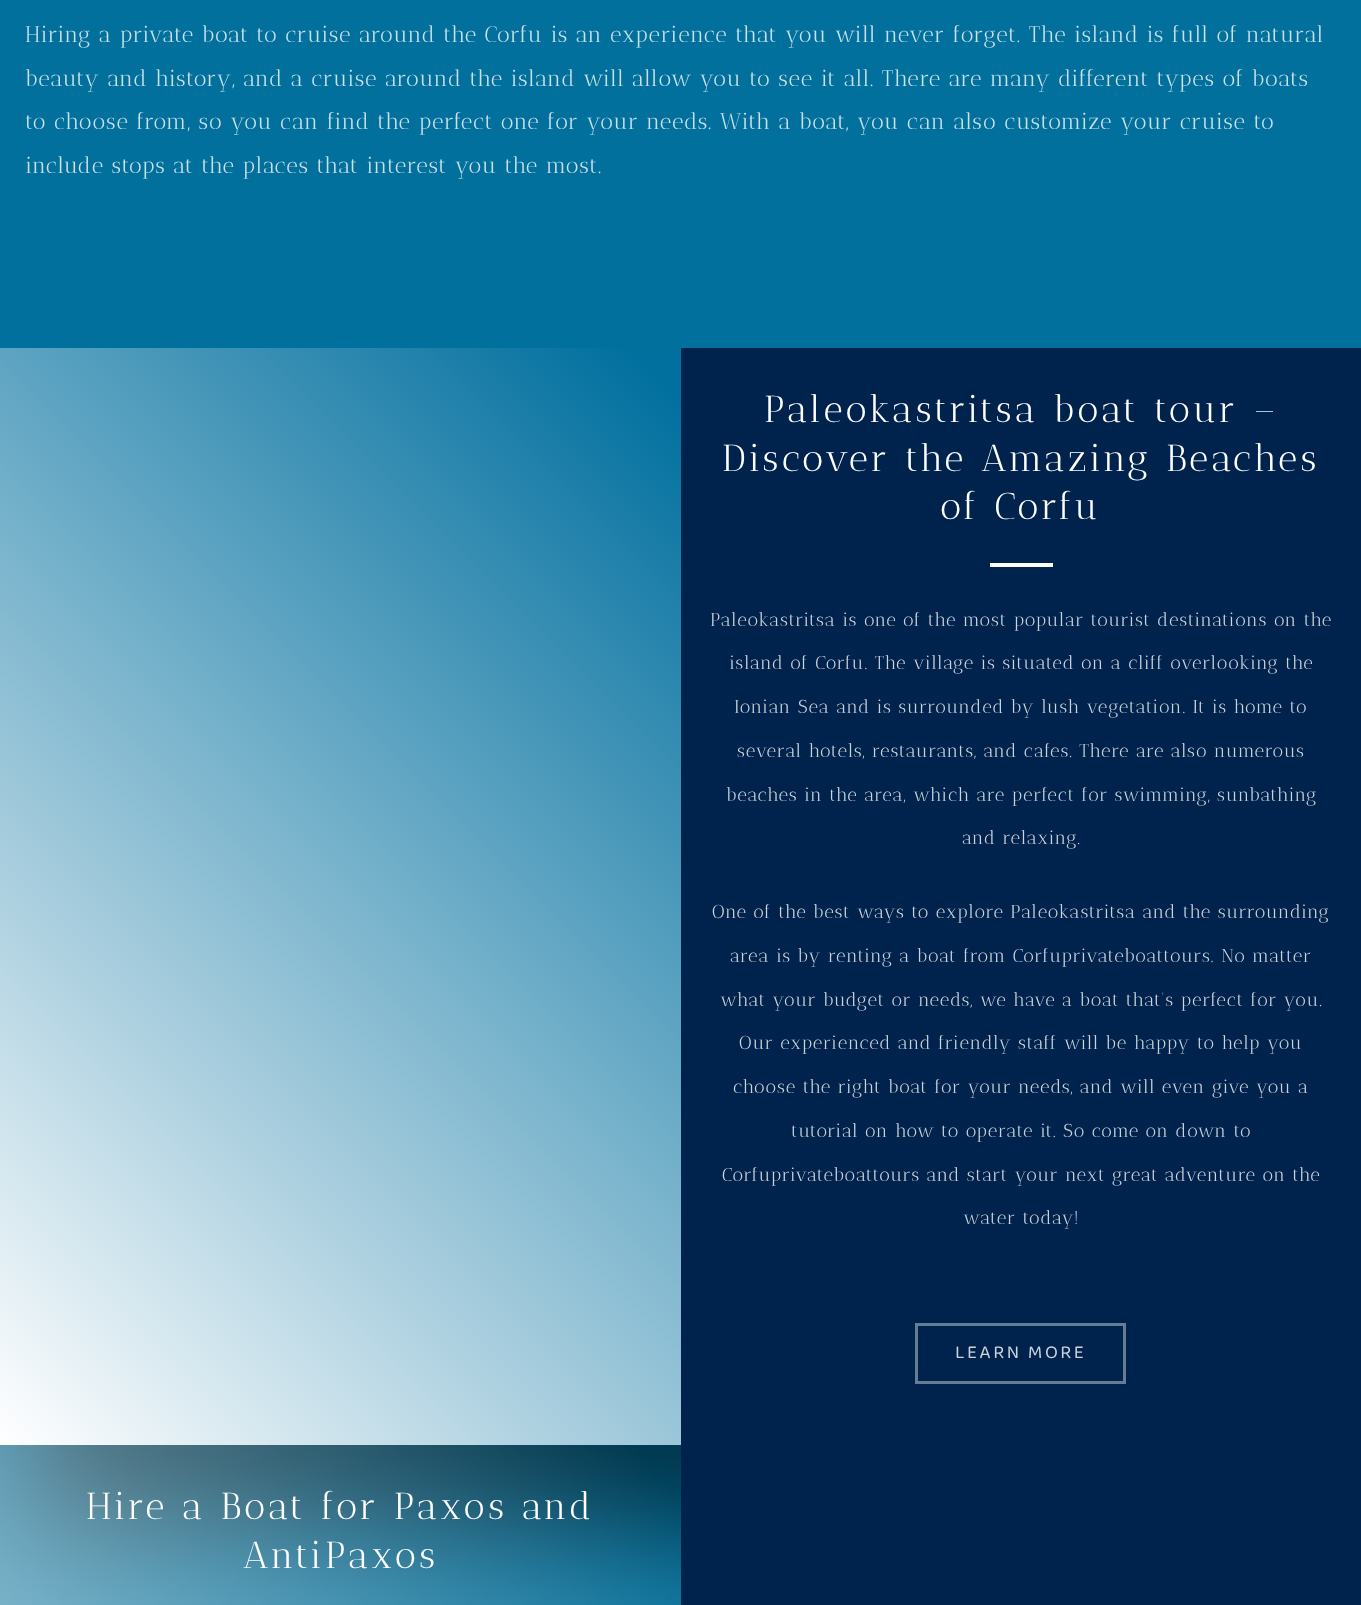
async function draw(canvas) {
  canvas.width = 1361
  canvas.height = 1605
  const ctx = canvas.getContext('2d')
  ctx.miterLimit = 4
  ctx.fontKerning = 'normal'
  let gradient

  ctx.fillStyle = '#02709c'
  ctx.fillRect(0, 0, 1361, 1605)
  ctx.letterSpacing = '0.88px'
  ctx.font = '22.5px Antic Didone'
  ctx.fillStyle = '#cce2eb'
  ctx.fillText('Hiring a private boat to cruise around the Corfu is an experience that you will never forget. The island is full of natural', 25, 42)
  ctx.fillText('beauty and history, and a cruise around the island will allow you to see it all. There are many different types of boats', 25, 86)
  ctx.fillText('to choose from, so you can find the perfect one for your needs. With a boat, you can also customize your cruise to', 25, 129)
  ctx.fillText('include stops at the places that interest you the most.', 25, 173)
  ctx.fillStyle = '#00000080'
  ctx.filter = 'blur(56px)'
  ctx.beginPath()
  ctx.rect(25, 485, 1311, 1048)
  ctx.fill()
  ctx.filter = 'none'
  gradient = ctx.createLinearGradient(66, 1511, 1295, 282)
  gradient.addColorStop(0, '#fff')
  gradient.addColorStop(0.7, '#02709f')
  ctx.fillStyle = gradient
  ctx.fillRect(0, 348, 681, 1097)
  ctx.fillStyle = '#00234d'
  ctx.fillRect(681, 348, 680, 1257)
  ctx.letterSpacing = '3.4px'
  ctx.font = '37.5px Antic Didone'
  ctx.fillStyle = '#fff'
  ctx.fillText('Paleokastritsa boat tour –', 764, 422)
  ctx.fillText('Discover the Amazing Beaches', 722, 471)
  ctx.fillText('of Corfu', 940, 519)
  ctx.fillRect(990, 563, 63, 4)
  ctx.letterSpacing = '0.88px'
  ctx.font = '18.75px Antic Didone'
  ctx.fillStyle = '#ccd3db'
  ctx.fillText('Paleokastritsa is one of the most popular tourist destinations on the', 710, 626)
  ctx.fillText('island of Corfu. The village is situated on a cliff overlooking the', 729, 669)
  ctx.fillText('Ionian Sea and is surrounded by lush vegetation. It is home to', 734, 713)
  ctx.fillText('several hotels, restaurants, and cafes. There are also numerous', 737, 757)
  ctx.fillText('beaches in the area, which are perfect for swimming, sunbathing', 726, 801)
  ctx.fillText('and relaxing.', 962, 844)
  ctx.fillText('One of the best ways to explore Paleokastritsa and the surrounding', 712, 918)
  ctx.fillText('area is by renting a boat from Corfuprivateboattours. No matter', 730, 962)
  ctx.fillText('what your budget or needs, we have a boat that’s perfect for you.', 720, 1006)
  ctx.fillText('Our experienced and friendly staff will be happy to help you', 739, 1049)
  ctx.fillText('choose the right boat for your needs, and will even give you a', 733, 1093)
  ctx.fillText('tutorial on how to operate it. So come on down to', 791, 1137)
  ctx.fillText('Corfuprivateboattours and start your next great adventure on the', 722, 1181)
  ctx.fillText('water today!', 963, 1224)
  ctx.strokeStyle = '#667b94'
  ctx.lineWidth = 3
  ctx.strokeRect(916.5, 1324.5, 208, 58)
  ctx.letterSpacing = '2.5px'
  ctx.font = '18.75px "Baloo 2"'
  ctx.fillText('LEARN MORE', 955, 1358)
  gradient = ctx.createLinearGradient(75, 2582, 1287, 1370)
  gradient.addColorStop(0, '#fff')
  gradient.addColorStop(0.7, '#ffffff00')
  ctx.fillStyle = gradient
  ctx.fillRect(0, 1445, 681, 160)
  ctx.letterSpacing = '3.4px'
  ctx.font = '37.5px Antic Didone'
  ctx.fillStyle = '#fff'
  ctx.fillText('Hire a Boat for Paxos and', 86, 1519)
  ctx.fillText('AntiPaxos', 243, 1568)
}

draw(document.querySelector('canvas'))
